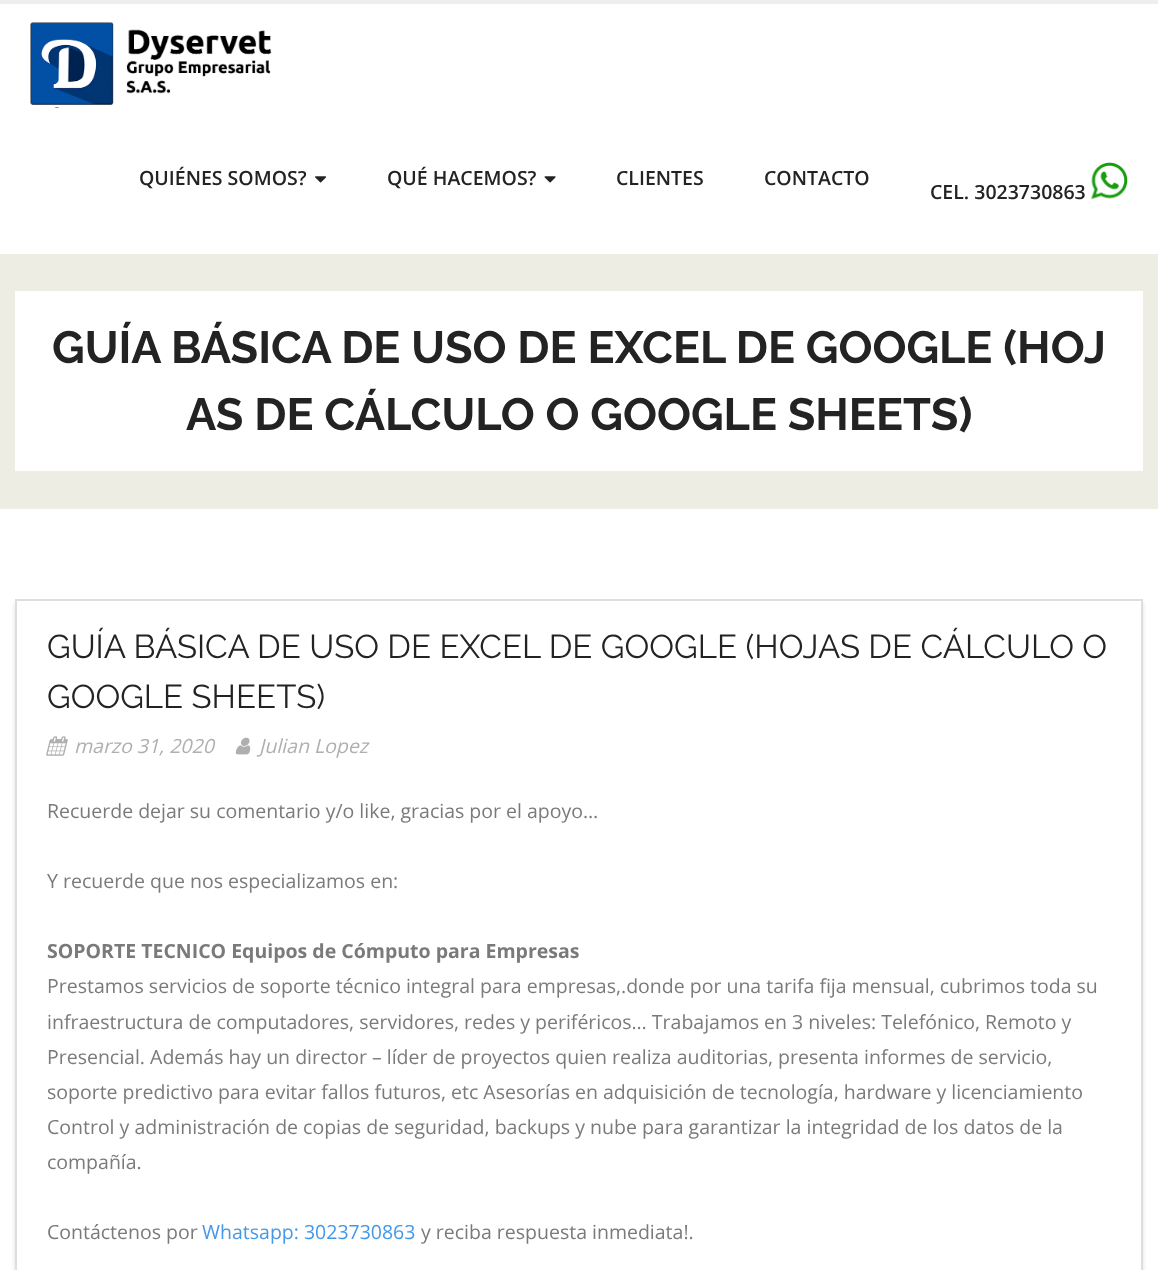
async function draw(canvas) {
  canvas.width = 1158
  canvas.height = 1270
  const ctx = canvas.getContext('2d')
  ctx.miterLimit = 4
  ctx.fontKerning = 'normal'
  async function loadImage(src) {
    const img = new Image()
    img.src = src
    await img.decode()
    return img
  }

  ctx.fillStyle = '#fff'
  ctx.fillRect(0, 0, 1158, 1270)
  ctx.fillStyle = '#eee'
  ctx.fillRect(0, 0, 1158, 4)
  ctx.drawImage(await loadImage('image0.png'), 30, 22, 242, 86)
  ctx.font = '600 19.5px Open Sans'
  ctx.fillStyle = '#232323'
  ctx.fillText('QUIÉNES SOMOS?', 139, 185)
  ctx.drawImage(await loadImage('image1.png'), 315, 176, 12, 7)
  ctx.fillText('QUÉ HACEMOS?', 387, 185)
  ctx.drawImage(await loadImage('image2.png'), 544, 176, 12, 7)
  ctx.fillText('CLIENTES', 616, 185)
  ctx.fillText('CONTACTO', 764, 185)
  ctx.fillText('CEL. 3023730863', 930, 199)
  ctx.drawImage(await loadImage('image3.png'), 1091, 162, 37, 38)
  ctx.fillStyle = '#eeede4'
  ctx.fillRect(0, 254, 1158, 255)
  ctx.fillStyle = '#fff'
  ctx.fillRect(15, 291, 1128, 180)
  ctx.font = 'bold 45px Raleway'
  ctx.fillStyle = '#232323'
  ctx.fillText('GUÍA BÁSICA DE USO DE EXCEL DE GOOGLE (HOJ', 52, 363)
  ctx.fillText('AS DE CÁLCULO O GOOGLE SHEETS)', 186, 430)
  ctx.save()
  ctx.beginPath()
  ctx.moveTo(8, 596)
  ctx.lineTo(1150, 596)
  ctx.lineTo(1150, 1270)
  ctx.lineTo(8, 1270)
  ctx.closePath()
  ctx.moveTo(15, 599)
  ctx.lineTo(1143, 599)
  ctx.lineTo(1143, 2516)
  ctx.lineTo(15, 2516)
  ctx.closePath()
  ctx.clip('evenodd')
  ctx.fillStyle = '#23232326'
  ctx.filter = 'blur(2px)'
  ctx.beginPath()
  ctx.rect(15, 603, 1128, 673)
  ctx.fill()
  ctx.filter = 'none'
  ctx.restore()
  ctx.strokeStyle = '#dedede'
  ctx.lineWidth = 2
  ctx.strokeRect(16, 600, 1126, 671)
  ctx.font = '33px Raleway'
  ctx.fillText('GUÍA BÁSICA DE USO DE EXCEL DE GOOGLE (HOJAS DE CÁLCULO O', 47, 658)
  ctx.fillText('GOOGLE SHEETS)', 47, 708)
  ctx.drawImage(await loadImage('image4.png'), 46, 736, 22, 20)
  ctx.font = 'italic 19.5px Open Sans'
  ctx.fillStyle = '#afafaf'
  ctx.fillText('marzo 31, 2020', 74, 753)
  ctx.drawImage(await loadImage('image5.png'), 235, 737, 16, 18)
  ctx.fillText('Julian Lopez', 259, 753)
  ctx.font = '19.5px Open Sans'
  ctx.fillStyle = '#7a7a7a'
  ctx.fillText('Recuerde dejar su comentario y/o like, gracias por el apoyo…', 47, 818)
  ctx.fillText('Y recuerde que nos especializamos en:', 47, 888)
  ctx.font = 'bold 19.5px Open Sans'
  ctx.fillText('SOPORTE TECNICO Equipos de Cómputo para Empresas', 47, 958)
  ctx.font = '19.5px Open Sans'
  ctx.fillText('Prestamos servicios de soporte técnico integral para empresas,.donde por una tarifa fija mensual, cubrimos toda su', 47, 993)
  ctx.fillText('infraestructura de computadores, servidores, redes y periféricos… Trabajamos en 3 niveles: Telefónico, Remoto y', 47, 1029)
  ctx.fillText('Presencial. Además hay un director – líder de proyectos quien realiza auditorias, presenta informes de servicio,', 47, 1064)
  ctx.fillText('soporte predictivo para evitar fallos futuros, etc Asesorías en adquisición de tecnología, hardware y licenciamiento', 47, 1099)
  ctx.fillText('Control y administración de copias de seguridad, backups y nube para garantizar la integridad de los datos de la', 47, 1134)
  ctx.fillText('compañía.', 47, 1169)
  ctx.fillText('Contáctenos por', 47, 1239)
  ctx.fillStyle = '#4498e7'
  ctx.fillText('Whatsapp: 3023730863', 202, 1239)
  ctx.fillStyle = '#7a7a7a'
  ctx.fillText('y reciba respuesta inmediata!.', 421, 1239)
}

draw(document.querySelector('canvas'))
